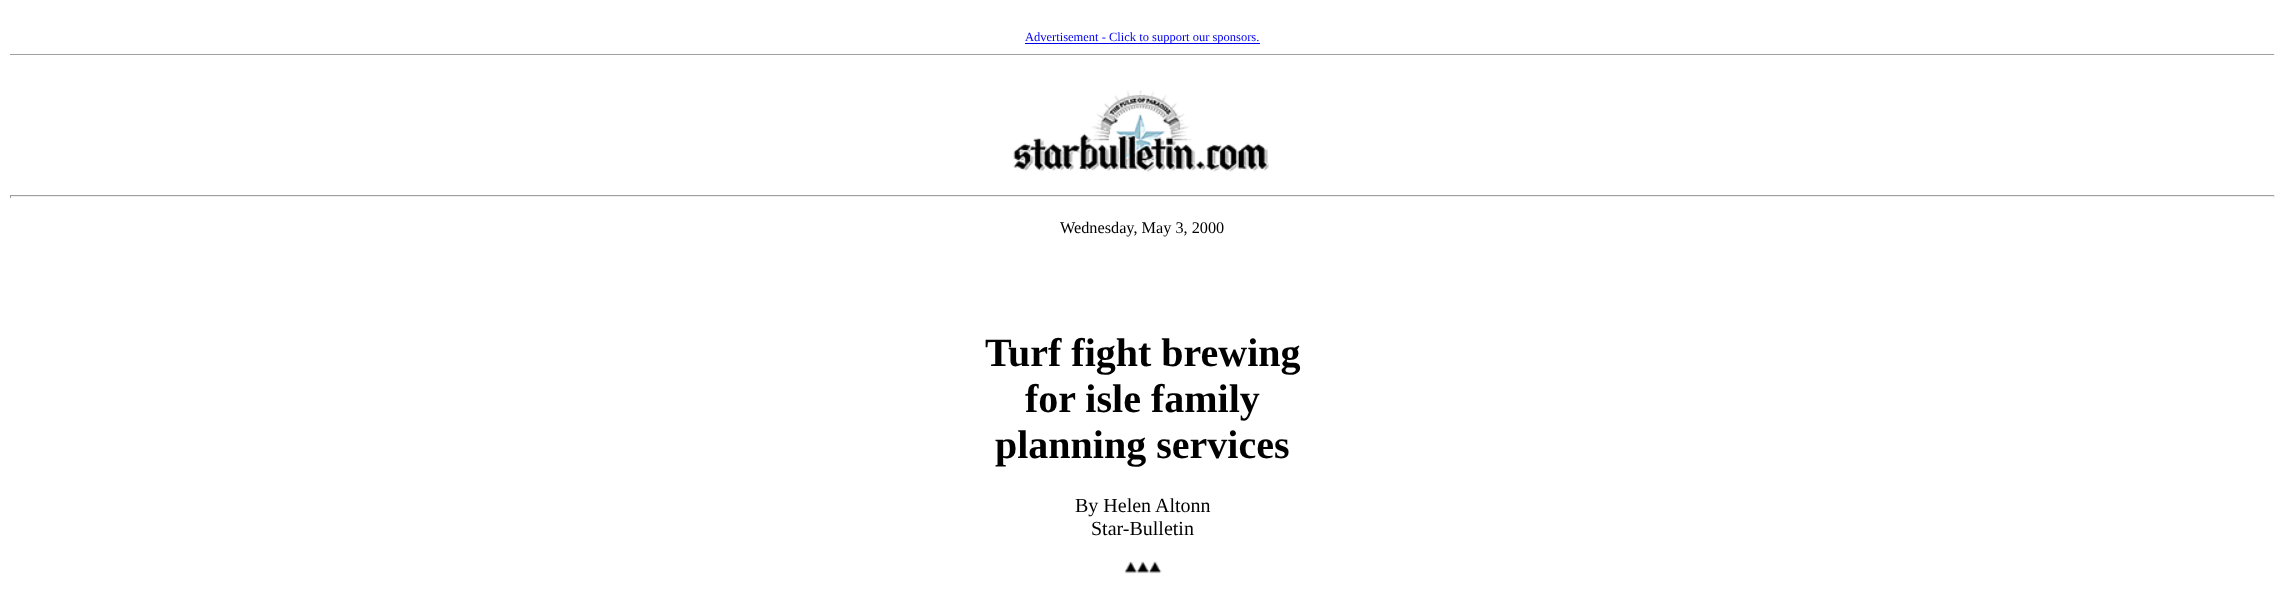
async function draw(canvas) {
  canvas.width = 2285
  canvas.height = 589
  const ctx = canvas.getContext('2d')
  ctx.miterLimit = 4
  ctx.fontKerning = 'normal'
  async function loadImage(src) {
    const img = new Image()
    img.src = src
    await img.decode()
    return img
  }

  ctx.fillStyle = '#fff'
  ctx.fillRect(0, 0, 2285, 589)
  ctx.fillStyle = '#00e'
  ctx.fillRect(1025, 43, 235, 1)
  ctx.font = '12.5px Liberation Serif'
  ctx.fillText('Advertisement - Click to support our sponsors.', 1025, 41)
  ctx.fillStyle = '#9f9f9f'
  ctx.fillRect(10, 54, 2265, 1)
  ctx.fillStyle = '#eee'
  ctx.fillRect(2274, 54, 1, 1)
  ctx.drawImage(await loadImage('image0.png'), 1013, 90, 256, 82)
  ctx.fillStyle = '#9f9f9f'
  ctx.fillRect(10, 195, 2265, 1)
  ctx.fillStyle = '#eee'
  ctx.fillRect(2274, 195, 1, 3)
  ctx.fillRect(10, 196, 2265, 1)
  ctx.fillStyle = '#9f9f9f'
  ctx.fillRect(10, 195, 1, 3)
  ctx.font = '16.25px Liberation Serif'
  ctx.fillStyle = '#000'
  ctx.fillText('Wednesday, May 3, 2000', 1060, 233)
  ctx.font = 'bold 40px Liberation Serif'
  ctx.fillText('Turf fight brewing', 985, 366)
  ctx.fillText('for isle family', 1025, 412)
  ctx.fillText('planning services', 995, 458)
  ctx.font = '20px Liberation Serif'
  ctx.fillText('By Helen Altonn', 1075, 512)
  ctx.fillText('Star-Bulletin', 1091, 535)
  ctx.drawImage(await loadImage('image1.png'), 1124, 561, 38, 13)
}

draw(document.querySelector('canvas'))
